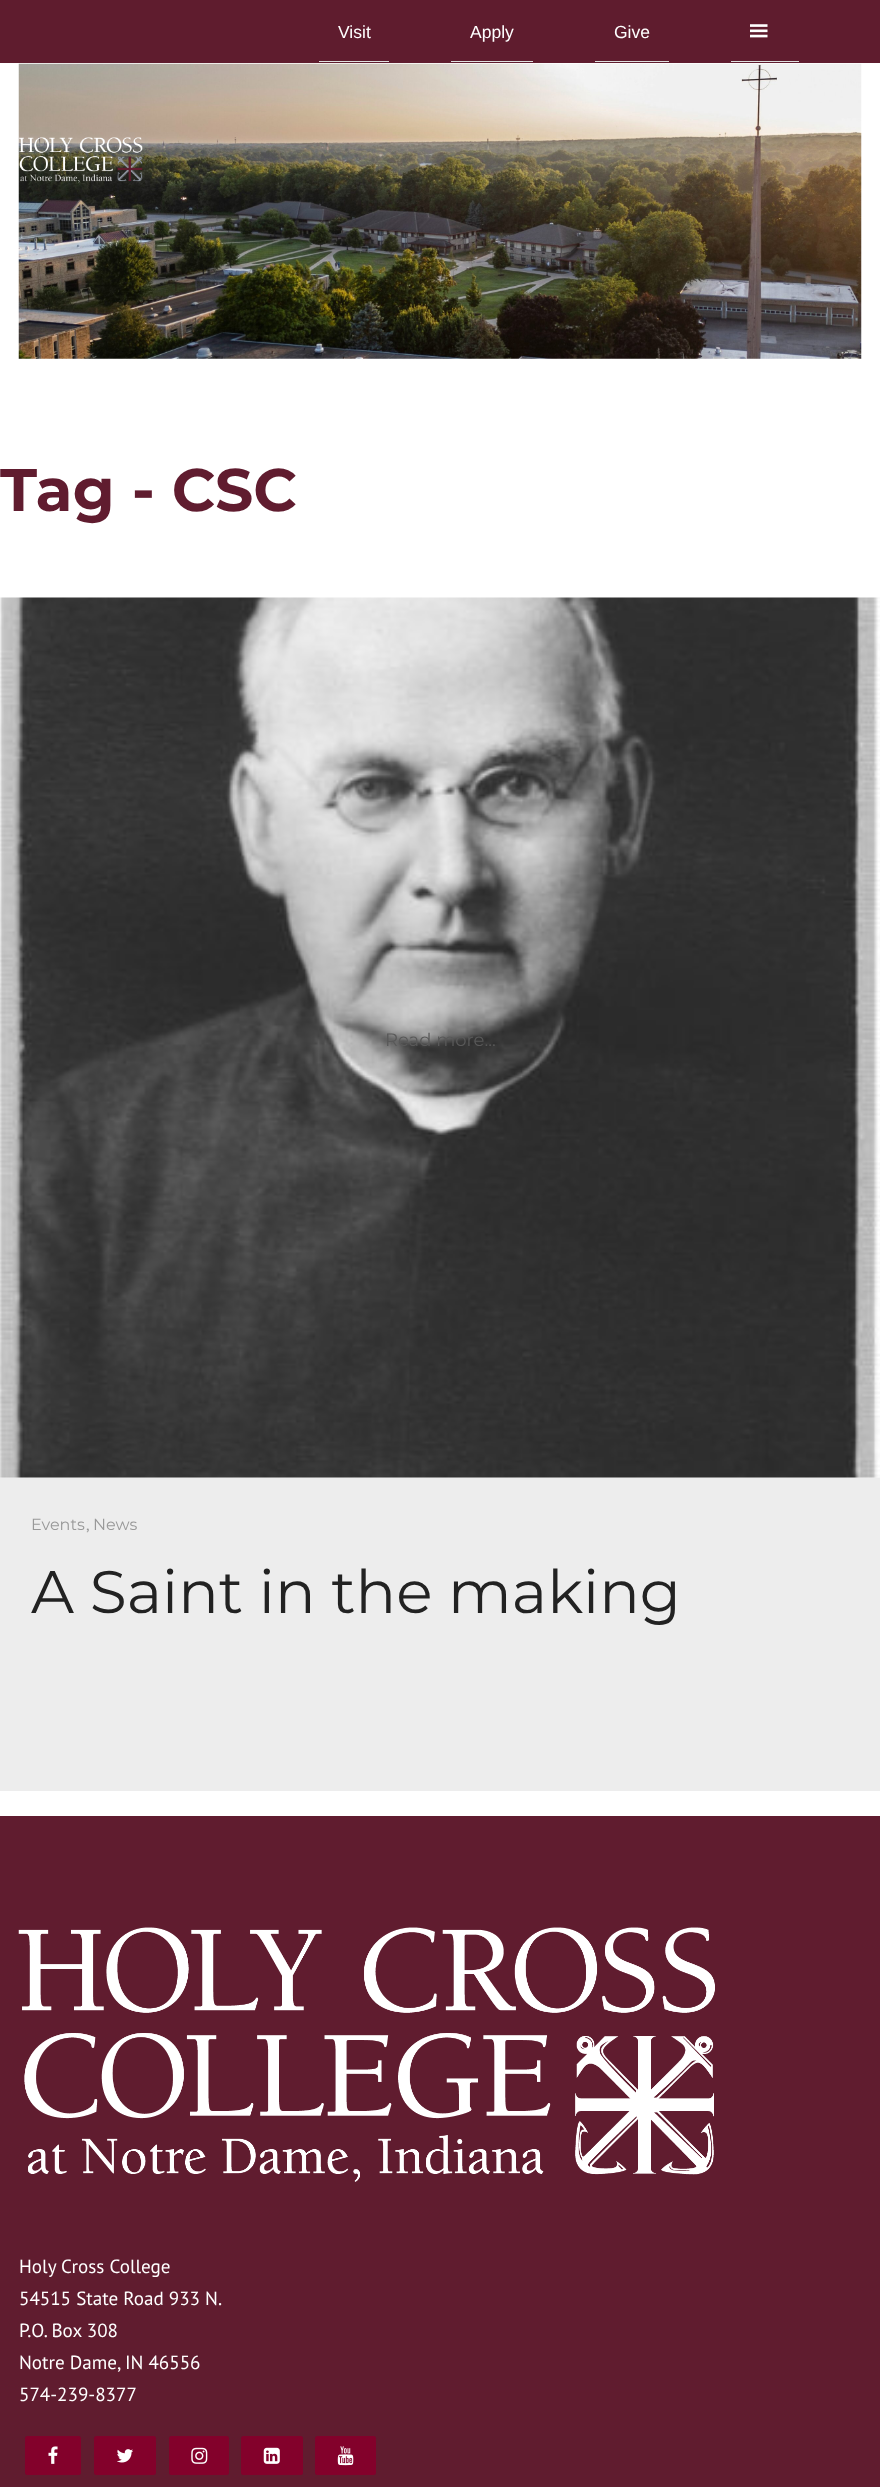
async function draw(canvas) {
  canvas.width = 880
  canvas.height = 2487
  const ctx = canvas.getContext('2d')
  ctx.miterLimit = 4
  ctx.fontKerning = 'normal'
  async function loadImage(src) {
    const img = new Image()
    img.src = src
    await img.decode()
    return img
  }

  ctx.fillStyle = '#fff'
  ctx.fillRect(0, 0, 880, 2487)
  ctx.fillStyle = '#5f1c2e'
  ctx.fillRect(0, 0, 880, 63)
  ctx.fillStyle = '#dfdfdf'
  ctx.fillRect(319, 61, 70, 1)
  ctx.font = '17.5px Liberation Sans'
  ctx.fillStyle = '#fff'
  ctx.fillText('Visit', 338, 38)
  ctx.fillStyle = '#dfdfdf'
  ctx.fillRect(451, 61, 82, 1)
  ctx.fillStyle = '#fff'
  ctx.fillText('Apply', 470, 38)
  ctx.fillStyle = '#dfdfdf'
  ctx.fillRect(595, 61, 74, 1)
  ctx.fillStyle = '#fff'
  ctx.fillText('Give', 614, 38)
  ctx.fillStyle = '#dfdfdf'
  ctx.fillRect(731, 61, 68, 1)
  ctx.drawImage(await loadImage('image0.png'), 750, 24, 18, 14)
  ctx.drawImage(await loadImage('image2.png'), 18, 63, 844, 296)
  ctx.drawImage(await loadImage('image1.png'), 19, 137, 124, 46)
  ctx.font = 'bold 60px Montserrat'
  ctx.fillStyle = '#601c2f'
  ctx.fillText('Tag - CSC', 0, 511)
  ctx.fillStyle = '#ededed'
  ctx.fillRect(0, 1478, 880, 313)
  ctx.fillStyle = '#f0f0f0'
  ctx.fillRect(0, 1477, 880, 1)
  ctx.drawImage(await loadImage('image3.png'), 0, 597, 880, 881)
  ctx.font = '18px Montserrat'
  ctx.fillStyle = '#595959'
  ctx.fillText('Read more...', 385, 1046)
  ctx.font = '16px Montserrat'
  ctx.fillStyle = '#999'
  ctx.fillText('Events', 31, 1530)
  ctx.font = '16px PT Sans'
  ctx.fillText(',', 86, 1530)
  ctx.font = '16px Montserrat'
  ctx.fillText('News', 93, 1530)
  ctx.font = '60px Montserrat'
  ctx.fillStyle = '#222'
  ctx.fillText('A Saint in the making', 31, 1613)
  ctx.fillStyle = '#601c2f'
  ctx.fillRect(0, 1816, 880, 671)
  ctx.drawImage(await loadImage('image4.png'), 18, 1927, 697, 255)
  ctx.font = '19.1px PT Sans'
  ctx.fillStyle = '#fff'
  ctx.fillText('Holy Cross College', 19, 2273)
  ctx.fillText('54515 State Road 933 N.', 19, 2305)
  ctx.fillText('P.O. Box 308', 19, 2337)
  ctx.fillText('Notre Dame, IN 46556', 19, 2369)
  ctx.fillText('574-239-8377', 19, 2401)
  ctx.fillStyle = '#83012b'
  ctx.beginPath()
  ctx.roundRect(25, 2436, 56, 39, 2.5)
  ctx.fill()
  ctx.drawImage(await loadImage('image5.png'), 48, 2446, 10, 18)
  ctx.beginPath()
  ctx.roundRect(94, 2436, 62, 39, 2.5)
  ctx.fill()
  ctx.drawImage(await loadImage('image6.png'), 117, 2449, 16, 14)
  ctx.beginPath()
  ctx.roundRect(169, 2436, 60, 39, 2.5)
  ctx.fill()
  ctx.drawImage(await loadImage('image7.png'), 191, 2447, 17, 17)
  ctx.beginPath()
  ctx.roundRect(241, 2436, 62, 39, 2.5)
  ctx.fill()
  ctx.drawImage(await loadImage('image8.png'), 263, 2447, 17, 17)
  ctx.beginPath()
  ctx.roundRect(315, 2436, 61, 39, 2.5)
  ctx.fill()
  ctx.drawImage(await loadImage('image9.png'), 337, 2446, 17, 20)
}

draw(document.querySelector('canvas'))
